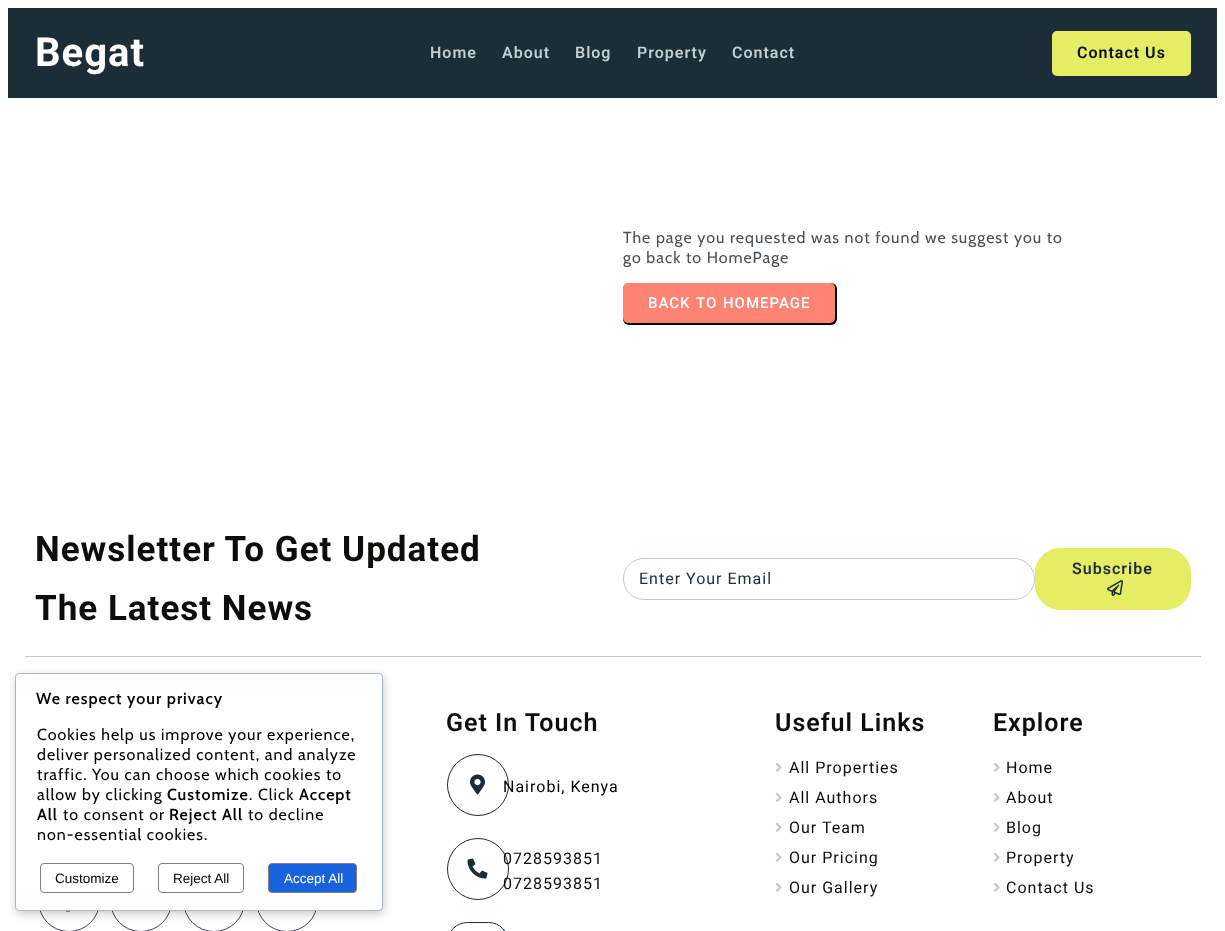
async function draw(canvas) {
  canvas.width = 1225
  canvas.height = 931
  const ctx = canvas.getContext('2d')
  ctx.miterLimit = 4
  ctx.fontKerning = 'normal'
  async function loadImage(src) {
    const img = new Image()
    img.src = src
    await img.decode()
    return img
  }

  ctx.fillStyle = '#fff'
  ctx.fillRect(0, 0, 1225, 931)
  ctx.fillStyle = '#1c2d37'
  ctx.fillRect(8, 8, 1209, 90)
  ctx.letterSpacing = '1px'
  ctx.font = 'bold 40px Roboto'
  ctx.fillStyle = '#fff'
  ctx.fillText('Begat', 35, 66)
  ctx.font = '600 16px Roboto'
  ctx.fillStyle = '#c0cdd1'
  ctx.fillText('Home', 430, 58)
  ctx.fillText('About', 502, 58)
  ctx.fillText('Blog', 575, 58)
  ctx.fillText('Property', 637, 58)
  ctx.fillText('Contact', 732, 58)
  ctx.fillStyle = '#e4ed64'
  ctx.beginPath()
  ctx.roundRect(1052, 31, 139, 45, 5)
  ctx.fill()
  ctx.fillStyle = '#0d0d0c'
  ctx.fillText('Contact Us', 1077, 58)
  ctx.font = '16px Cabin'
  ctx.fillStyle = '#495057'
  ctx.fillText('The page you requested was not found we suggest you to', 623, 243)
  ctx.fillText('go back to HomePage', 623, 263)
  ctx.fillStyle = '#000'
  ctx.filter = 'blur(0.5px)'
  ctx.beginPath()
  ctx.roundRect(623, 283, 214, 42, 6)
  ctx.fill()
  ctx.filter = 'none'
  ctx.fillStyle = '#ff8474'
  ctx.beginPath()
  ctx.roundRect(623, 283, 212, 40, 5)
  ctx.fill()
  ctx.wordSpacing = '1px'
  ctx.font = '500 15px Roboto'
  ctx.fillStyle = '#fff'
  ctx.fillText('BACK TO HOMEPAGE', 648, 308)
  ctx.wordSpacing = '0px'
  ctx.font = 'bold 35px Roboto'
  ctx.fillStyle = '#0d0d0c'
  ctx.fillText('Newsletter To Get Updated', 35, 561)
  ctx.fillText('The Latest News', 35, 620)
  ctx.fillStyle = '#e4ed64'
  ctx.beginPath()
  ctx.roundRect(1035.5, 548.5, 155, 61, 24.5)
  ctx.fill()
  ctx.strokeStyle = '#e4ed64'
  ctx.stroke()
  ctx.font = '600 16px Roboto'
  ctx.fillStyle = '#1c2d37'
  ctx.fillText('Subscribe', 1072, 574)
  ctx.drawImage(await loadImage('image0.png'), 1107, 580, 16, 16)
  ctx.beginPath()
  ctx.roundRect(623.5, 558.5, 411, 41, 20.5)
  ctx.strokeStyle = '#c0cdd1'
  ctx.stroke()
  ctx.font = '16px Roboto'
  ctx.fillText('Enter Your Email', 639, 584)
  ctx.fillStyle = '#c0cdd1'
  ctx.fillRect(25, 656, 1176, 1)
  ctx.beginPath()
  ctx.arc(69, 901, 30.5, 0, 2 * Math.PI)
  ctx.strokeStyle = '#42414f'
  ctx.stroke()
  ctx.drawImage(await loadImage('image1.png'), 66, 911, 4, 1)
  ctx.beginPath()
  ctx.arc(141, 901, 30.5, 0, 2 * Math.PI)
  ctx.stroke()
  ctx.beginPath()
  ctx.arc(214, 901, 30.5, 0, 2 * Math.PI)
  ctx.stroke()
  ctx.beginPath()
  ctx.arc(287, 901, 30.5, 0, 2 * Math.PI)
  ctx.stroke()
  ctx.font = '600 25px Roboto'
  ctx.fillStyle = '#0d0d0c'
  ctx.fillText('Get In Touch', 446, 731)
  ctx.beginPath()
  ctx.arc(478, 785, 30.5, 0, 2 * Math.PI)
  ctx.strokeStyle = '#1c2d37'
  ctx.stroke()
  ctx.drawImage(await loadImage('image2.png'), 470, 774, 15, 21)
  ctx.font = '16px Roboto'
  ctx.fillStyle = '#000'
  ctx.fillText('Nairobi, Kenya', 503, 792)
  ctx.beginPath()
  ctx.arc(478, 869, 30.5, 0, 2 * Math.PI)
  ctx.stroke()
  ctx.drawImage(await loadImage('image3.png'), 467, 858, 21, 21)
  ctx.fillStyle = '#0d0d0c'
  ctx.fillText('0728593851', 503, 864)
  ctx.fillText('0728593851', 503, 889)
  ctx.beginPath()
  ctx.roundRect(447.5, 922.5, 61, 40, 30.5)
  ctx.stroke()
  ctx.font = '600 25px Roboto'
  ctx.fillText('Useful Links', 775, 731)
  ctx.drawImage(await loadImage('image4.png'), 775, 762, 7, 10)
  ctx.font = '16px Roboto'
  ctx.fillText('All Properties', 789, 773)
  ctx.drawImage(await loadImage('image4.png'), 775, 792, 7, 10)
  ctx.fillText('All Authors', 789, 803)
  ctx.drawImage(await loadImage('image4.png'), 775, 822, 7, 10)
  ctx.fillText('Our Team', 789, 833)
  ctx.drawImage(await loadImage('image4.png'), 775, 852, 7, 10)
  ctx.fillText('Our Pricing', 789, 863)
  ctx.drawImage(await loadImage('image4.png'), 775, 882, 7, 10)
  ctx.fillText('Our Gallery', 789, 893)
  ctx.font = '600 25px Roboto'
  ctx.fillText('Explore', 993, 731)
  ctx.drawImage(await loadImage('image4.png'), 993, 762, 7, 10)
  ctx.font = '16px Roboto'
  ctx.fillText('Home', 1006, 773)
  ctx.drawImage(await loadImage('image4.png'), 993, 792, 7, 10)
  ctx.fillText('About', 1006, 803)
  ctx.drawImage(await loadImage('image4.png'), 993, 822, 7, 10)
  ctx.fillText('Blog', 1006, 833)
  ctx.drawImage(await loadImage('image4.png'), 993, 852, 7, 10)
  ctx.fillText('Property', 1006, 863)
  ctx.drawImage(await loadImage('image4.png'), 993, 882, 7, 10)
  ctx.fillText('Contact Us', 1006, 893)
  ctx.fillStyle = '#00000033'
  ctx.filter = 'blur(5px)'
  ctx.beginPath()
  ctx.roundRect(16, 676, 368, 238, 4)
  ctx.fill()
  ctx.filter = 'none'
  ctx.fillStyle = '#fff'
  ctx.beginPath()
  ctx.roundRect(15.5, 673.5, 367, 237, 3.5)
  ctx.fill()
  ctx.strokeStyle = '#abb8c3'
  ctx.stroke()
  ctx.font = '600 16px Cabin'
  ctx.fillStyle = '#000'
  ctx.fillText('We respect your privacy', 36, 704)
  ctx.font = '16px Cabin'
  ctx.fillText('Cookies help us improve your experience,', 37, 740)
  ctx.fillText('deliver personalized content, and analyze', 37, 760)
  ctx.fillText('traffic. You can choose which cookies to', 37, 780)
  ctx.fillText('allow by clicking', 37, 800)
  ctx.font = '600 16px Cabin'
  ctx.fillText('Customize', 167, 800)
  ctx.font = '16px Cabin'
  ctx.fillText('. Click', 249, 800)
  ctx.font = '600 16px Cabin'
  ctx.fillText('Accept', 299, 800)
  ctx.fillText('All', 37, 820)
  ctx.font = '16px Cabin'
  ctx.fillText('to consent or', 63, 820)
  ctx.font = '600 16px Cabin'
  ctx.fillText('Reject All', 169, 820)
  ctx.font = '16px Cabin'
  ctx.fillText('to decline', 248, 820)
  ctx.fillText('non-essential cookies.', 37, 840)
  ctx.beginPath()
  ctx.roundRect(40.5, 863.5, 93, 29, 3.5)
  ctx.strokeStyle = '#808080'
  ctx.stroke()
  ctx.letterSpacing = '0px'
  ctx.font = '13.5px Liberation Sans'
  ctx.fillText('Customize', 55, 883)
  ctx.beginPath()
  ctx.roundRect(158.5, 863.5, 85, 29, 3.5)
  ctx.stroke()
  ctx.fillText('Reject All', 173, 883)
  ctx.fillStyle = '#1863dc'
  ctx.beginPath()
  ctx.roundRect(268.5, 863.5, 88, 29, 3.5)
  ctx.fill()
  ctx.stroke()
  ctx.fillStyle = '#fff'
  ctx.fillText('Accept All', 284, 883)
}

draw(document.querySelector('canvas'))
